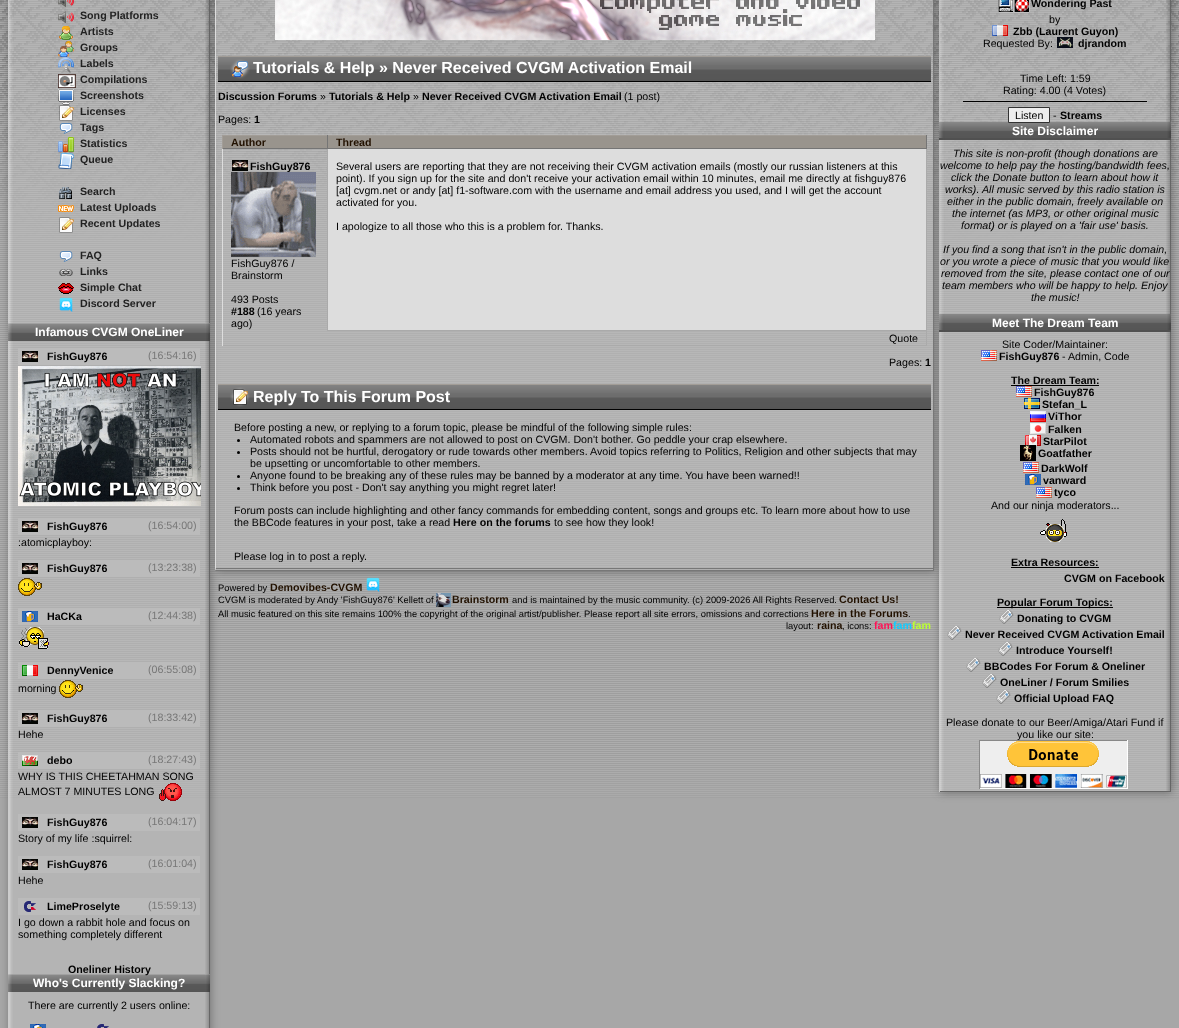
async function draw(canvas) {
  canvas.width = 1179
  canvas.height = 1028
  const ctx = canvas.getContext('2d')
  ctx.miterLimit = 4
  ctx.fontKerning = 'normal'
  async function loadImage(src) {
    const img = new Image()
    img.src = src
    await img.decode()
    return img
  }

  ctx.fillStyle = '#a7a7a7'
  ctx.fillRect(0, 0, 1179, 1028)
  ctx.drawImage(await loadImage('image0.png'), 0, 0, 1179, 798)
  ctx.save()
  ctx.beginPath()
  ctx.moveTo(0, 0)
  ctx.lineTo(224, 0)
  ctx.lineTo(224, 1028)
  ctx.lineTo(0, 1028)
  ctx.closePath()
  ctx.moveTo(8, -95)
  ctx.lineTo(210, -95)
  ctx.lineTo(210, 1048)
  ctx.lineTo(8, 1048)
  ctx.closePath()
  ctx.clip('evenodd')
  ctx.fillStyle = '#40404080'
  ctx.filter = 'blur(4px)'
  ctx.beginPath()
  ctx.rect(9, -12, 202, 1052)
  ctx.fill()
  ctx.filter = 'none'
  ctx.restore()
  ctx.drawImage(await loadImage('image1.png'), 9, 0, 200, 1028)
  ctx.fillStyle = '#666'
  ctx.fillRect(209, 0, 1, 1028)
  ctx.fillStyle = '#ccc'
  ctx.fillRect(8, 0, 1, 1028)
  ctx.drawImage(await loadImage('image2.png'), 58, 0, 16, 7)
  ctx.drawImage(await loadImage('image3.png'), 58, 11, 16, 12)
  ctx.font = 'bold 10.67px Liberation Sans'
  ctx.fillStyle = '#222'
  ctx.fillText('Song Platforms', 80, 19)
  ctx.drawImage(await loadImage('image4.png'), 59, 26, 14, 14)
  ctx.fillText('Artists', 80, 35)
  ctx.drawImage(await loadImage('image5.png'), 58, 41, 16, 16)
  ctx.fillText('Groups', 80, 51)
  ctx.drawImage(await loadImage('image6.png'), 58, 57, 16, 16)
  ctx.fillText('Labels', 80, 67)
  ctx.drawImage(await loadImage('image7.png'), 58, 74, 18, 14)
  ctx.fillText('Compilations', 80, 83)
  ctx.drawImage(await loadImage('image8.png'), 58, 89, 16, 16)
  ctx.fillText('Screenshots', 80, 99)
  ctx.drawImage(await loadImage('image9.png'), 59, 105, 15, 16)
  ctx.fillText('Licenses', 80, 115)
  ctx.drawImage(await loadImage('image10.png'), 59, 123, 14, 11)
  ctx.fillText('Tags', 80, 131)
  ctx.drawImage(await loadImage('image11.png'), 58, 137, 16, 16)
  ctx.fillText('Statistics', 80, 147)
  ctx.drawImage(await loadImage('image12.png'), 58, 153, 16, 16)
  ctx.fillText('Queue', 80, 163)
  ctx.drawImage(await loadImage('image13.png'), 59, 187, 13, 12)
  ctx.fillText('Search', 80, 195)
  ctx.drawImage(await loadImage('image14.png'), 58, 205, 16, 7)
  ctx.fillText('Latest Uploads', 80, 211)
  ctx.drawImage(await loadImage('image15.png'), 59, 217, 15, 16)
  ctx.fillText('Recent Updates', 80, 227)
  ctx.drawImage(await loadImage('image16.png'), 59, 251, 14, 11)
  ctx.fillText('FAQ', 80, 259)
  ctx.drawImage(await loadImage('image17.png'), 59, 269, 14, 7)
  ctx.fillText('Links', 80, 275)
  ctx.drawImage(await loadImage('image18.png'), 58, 283, 16, 11)
  ctx.fillText('Simple Chat', 80, 291)
  ctx.drawImage(await loadImage('image19.png'), 59, 297, 14, 15)
  ctx.fillText('Discord Server', 80, 307)
  ctx.fillStyle = '#505050'
  ctx.fillRect(8, 324, 202, 17)
  ctx.drawImage(await loadImage('image20.png'), 8, 323, 202, 18)
  ctx.font = 'bold 12px Liberation Sans'
  ctx.fillStyle = '#fff'
  ctx.fillText('Infamous CVGM OneLiner', 35, 336)
  ctx.fillStyle = '#bbb'
  ctx.fillRect(18, 348, 182, 17)
  ctx.drawImage(await loadImage('image21.png'), 22, 351, 16, 11)
  ctx.font = 'bold 10.67px Liberation Sans'
  ctx.fillStyle = '#000'
  ctx.fillText('FishGuy876', 47, 360)
  ctx.font = '10.67px Liberation Sans'
  ctx.fillStyle = '#777'
  ctx.fillText('(16:54:16)', 148, 359)
  ctx.drawImage(await loadImage('image22.png'), 18, 366, 183, 140)
  ctx.fillStyle = '#bbb'
  ctx.fillRect(18, 518, 182, 17)
  ctx.drawImage(await loadImage('image21.png'), 22, 521, 16, 11)
  ctx.font = 'bold 10.67px Liberation Sans'
  ctx.fillStyle = '#000'
  ctx.fillText('FishGuy876', 47, 530)
  ctx.font = '10.67px Liberation Sans'
  ctx.fillStyle = '#777'
  ctx.fillText('(16:54:00)', 148, 529)
  ctx.fillStyle = '#000'
  ctx.fillText(':atomicplayboy:', 18, 546)
  ctx.fillStyle = '#bbb'
  ctx.fillRect(18, 560, 182, 17)
  ctx.drawImage(await loadImage('image21.png'), 22, 563, 16, 11)
  ctx.font = 'bold 10.67px Liberation Sans'
  ctx.fillStyle = '#000'
  ctx.fillText('FishGuy876', 47, 572)
  ctx.font = '10.67px Liberation Sans'
  ctx.fillStyle = '#777'
  ctx.fillText('(13:23:38)', 148, 571)
  ctx.drawImage(await loadImage('image23.png'), 18, 578, 24, 18)
  ctx.fillStyle = '#bbb'
  ctx.fillRect(18, 608, 182, 17)
  ctx.drawImage(await loadImage('image24.png'), 22, 611, 16, 11)
  ctx.font = 'bold 10.67px Liberation Sans'
  ctx.fillStyle = '#000'
  ctx.fillText('HaCKa', 47, 620)
  ctx.font = '10.67px Liberation Sans'
  ctx.fillStyle = '#777'
  ctx.fillText('(12:44:38)', 148, 619)
  ctx.drawImage(await loadImage('image25.png'), 19, 627, 30, 22)
  ctx.fillStyle = '#bbb'
  ctx.fillRect(18, 662, 182, 17)
  ctx.drawImage(await loadImage('image26.png'), 22, 665, 16, 11)
  ctx.font = 'bold 10.67px Liberation Sans'
  ctx.fillStyle = '#000'
  ctx.fillText('DennyVenice', 47, 674)
  ctx.font = '10.67px Liberation Sans'
  ctx.fillStyle = '#777'
  ctx.fillText('(06:55:08)', 148, 673)
  ctx.fillStyle = '#000'
  ctx.fillText('morning', 18, 692)
  ctx.drawImage(await loadImage('image23.png'), 59, 680, 24, 18)
  ctx.fillStyle = '#bbb'
  ctx.fillRect(18, 710, 182, 17)
  ctx.drawImage(await loadImage('image21.png'), 22, 713, 16, 11)
  ctx.font = 'bold 10.67px Liberation Sans'
  ctx.fillStyle = '#000'
  ctx.fillText('FishGuy876', 47, 722)
  ctx.font = '10.67px Liberation Sans'
  ctx.fillStyle = '#777'
  ctx.fillText('(18:33:42)', 148, 721)
  ctx.fillStyle = '#000'
  ctx.fillText('Hehe', 18, 738)
  ctx.fillStyle = '#bbb'
  ctx.fillRect(18, 752, 182, 17)
  ctx.drawImage(await loadImage('image27.png'), 22, 755, 16, 11)
  ctx.font = 'bold 10.67px Liberation Sans'
  ctx.fillStyle = '#000'
  ctx.fillText('debo', 47, 764)
  ctx.font = '10.67px Liberation Sans'
  ctx.fillStyle = '#777'
  ctx.fillText('(18:27:43)', 148, 763)
  ctx.fillStyle = '#000'
  ctx.fillText('WHY IS THIS CHEETAHMAN SONG', 18, 780)
  ctx.fillText('ALMOST 7 MINUTES LONG', 18, 795)
  ctx.drawImage(await loadImage('image28.png'), 159, 783, 23, 18)
  ctx.fillStyle = '#bbb'
  ctx.fillRect(18, 814, 182, 17)
  ctx.drawImage(await loadImage('image21.png'), 22, 817, 16, 11)
  ctx.font = 'bold 10.67px Liberation Sans'
  ctx.fillStyle = '#000'
  ctx.fillText('FishGuy876', 47, 826)
  ctx.font = '10.67px Liberation Sans'
  ctx.fillStyle = '#777'
  ctx.fillText('(16:04:17)', 148, 825)
  ctx.fillStyle = '#000'
  ctx.fillText('Story of my life :squirrel:', 18, 842)
  ctx.fillStyle = '#bbb'
  ctx.fillRect(18, 856, 182, 17)
  ctx.drawImage(await loadImage('image21.png'), 22, 859, 16, 11)
  ctx.font = 'bold 10.67px Liberation Sans'
  ctx.fillStyle = '#000'
  ctx.fillText('FishGuy876', 47, 868)
  ctx.font = '10.67px Liberation Sans'
  ctx.fillStyle = '#777'
  ctx.fillText('(16:01:04)', 148, 867)
  ctx.fillStyle = '#000'
  ctx.fillText('Hehe', 18, 884)
  ctx.fillStyle = '#bbb'
  ctx.fillRect(18, 898, 182, 17)
  ctx.drawImage(await loadImage('image29.png'), 24, 901, 12, 11)
  ctx.font = 'bold 10.67px Liberation Sans'
  ctx.fillStyle = '#000'
  ctx.fillText('LimeProselyte', 47, 910)
  ctx.font = '10.67px Liberation Sans'
  ctx.fillStyle = '#777'
  ctx.fillText('(15:59:13)', 148, 909)
  ctx.fillStyle = '#000'
  ctx.fillText('I go down a rabbit hole and focus on', 18, 926)
  ctx.fillText('something completely different', 18, 938)
  ctx.fillStyle = '#505050'
  ctx.fillRect(8, 975, 202, 17)
  ctx.drawImage(await loadImage('image20.png'), 8, 974, 202, 18)
  ctx.font = 'bold 10.67px Liberation Sans'
  ctx.fillStyle = '#000'
  ctx.fillText('Oneliner History', 68, 973)
  ctx.font = 'bold 12px Liberation Sans'
  ctx.fillStyle = '#fff'
  ctx.fillText('Who\'s Currently Slacking?', 33, 987)
  ctx.font = '10.67px Liberation Sans'
  ctx.fillStyle = '#000'
  ctx.fillText('There are currently 2 users online:', 28, 1009)
  ctx.drawImage(await loadImage('image30.png'), 30, 1024, 16, 4)
  ctx.drawImage(await loadImage('image31.png'), 97, 1024, 12, 4)
  ctx.save()
  ctx.beginPath()
  ctx.moveTo(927, 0)
  ctx.lineTo(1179, 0)
  ctx.lineTo(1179, 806)
  ctx.lineTo(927, 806)
  ctx.closePath()
  ctx.moveTo(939, -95)
  ctx.lineTo(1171, -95)
  ctx.lineTo(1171, 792)
  ctx.lineTo(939, 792)
  ctx.closePath()
  ctx.clip('evenodd')
  ctx.fillStyle = '#40404080'
  ctx.filter = 'blur(4px)'
  ctx.beginPath()
  ctx.rect(940, -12, 232, 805)
  ctx.fill()
  ctx.filter = 'none'
  ctx.restore()
  ctx.drawImage(await loadImage('image41.png'), 940, 0, 230, 791)
  ctx.fillStyle = '#666'
  ctx.fillRect(1170, 0, 1, 792)
  ctx.fillRect(939, 791, 232, 1)
  ctx.fillStyle = '#ccc'
  ctx.fillRect(939, 0, 1, 792)
  ctx.fillStyle = '#505050'
  ctx.fillRect(939, 122, 232, 18)
  ctx.drawImage(await loadImage('image45.png'), 939, 122, 232, 16)
  ctx.fillRect(939, 314, 232, 18)
  ctx.drawImage(await loadImage('image45.png'), 939, 314, 232, 16)
  ctx.save()
  ctx.beginPath()
  ctx.moveTo(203, 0)
  ctx.lineTo(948, 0)
  ctx.lineTo(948, 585)
  ctx.lineTo(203, 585)
  ctx.closePath()
  ctx.moveTo(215, -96)
  ctx.lineTo(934, -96)
  ctx.lineTo(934, 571)
  ctx.lineTo(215, 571)
  ctx.closePath()
  ctx.clip('evenodd')
  ctx.fillStyle = '#40404080'
  ctx.filter = 'blur(4px)'
  ctx.beginPath()
  ctx.rect(216, -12, 719, 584)
  ctx.fill()
  ctx.filter = 'none'
  ctx.restore()
  ctx.fillStyle = '#c1c1c180'
  ctx.fillRect(215, 0, 718, 570)
  ctx.fillStyle = '#777'
  ctx.fillRect(933, 0, 1, 571)
  ctx.fillRect(215, 568, 719, 1)
  ctx.fillRect(215, 570, 719, 1)
  ctx.fillStyle = '#ddd'
  ctx.beginPath()
  ctx.moveTo(215, 571)
  ctx.lineTo(215, -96)
  ctx.lineTo(216, -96)
  ctx.lineTo(216, 568)
  ctx.closePath()
  ctx.fill()
  ctx.drawImage(await loadImage('image32.png'), 275, 0, 600, 40)
  ctx.fillStyle = '#505050'
  ctx.fillRect(218, 57, 713, 24)
  ctx.drawImage(await loadImage('image33.png'), 218, 57, 713, 24)
  ctx.fillStyle = '#a29d97'
  ctx.fillRect(218, 56, 713, 1)
  ctx.fillStyle = '#000'
  ctx.fillRect(218, 81, 713, 1)
  ctx.drawImage(await loadImage('image34.png'), 230, 59, 20, 20)
  ctx.drawImage(await loadImage('image35.png'), 232, 61, 16, 16)
  ctx.font = 'bold 16px Liberation Sans'
  ctx.fillStyle = '#fff'
  ctx.fillText('Tutorials & Help » Never Received CVGM Activation Email', 253, 73)
  ctx.font = 'bold 10.67px Liberation Sans'
  ctx.fillStyle = '#000'
  ctx.fillText('Discussion Forums', 218, 100)
  ctx.font = '10.67px Liberation Sans'
  ctx.fillText('»', 320, 100)
  ctx.font = 'bold 10.67px Liberation Sans'
  ctx.fillText('Tutorials & Help', 329, 100)
  ctx.font = '10.67px Liberation Sans'
  ctx.fillText('»', 413, 100)
  ctx.font = 'bold 10.67px Liberation Sans'
  ctx.fillText('Never Received CVGM Activation Email', 422, 100)
  ctx.font = '10.67px Liberation Sans'
  ctx.fillText('(1 post)', 624, 100)
  ctx.fillText('Pages:', 218, 123)
  ctx.font = 'bold 10.67px Liberation Sans'
  ctx.fillText('1', 254, 123)
  ctx.fillStyle = '#99948d'
  ctx.fillRect(223, 136, 104, 12)
  ctx.fillStyle = '#a29d97'
  ctx.fillRect(222, 135, 705, 1)
  ctx.fillStyle = '#aaa'
  ctx.fillRect(926, 148, 1, 198)
  ctx.fillStyle = '#757575'
  ctx.fillRect(926, 135, 1, 14)
  ctx.fillStyle = '#aaa'
  ctx.fillRect(327, 330, 600, 1)
  ctx.fillRect(327, 148, 1, 183)
  ctx.fillStyle = '#757575'
  ctx.fillRect(327, 148, 600, 1)
  ctx.fillRect(327, 135, 1, 14)
  ctx.fillStyle = '#aaa'
  ctx.fillRect(222, 345, 705, 1)
  ctx.fillStyle = '#ddd'
  ctx.fillRect(222, 148, 1, 198)
  ctx.fillStyle = '#757575'
  ctx.fillRect(222, 148, 106, 1)
  ctx.fillStyle = '#a29d97'
  ctx.fillRect(222, 135, 1, 14)
  ctx.fillStyle = '#210'
  ctx.fillText('Author', 231, 146)
  ctx.fillStyle = '#99948d'
  ctx.fillRect(328, 136, 598, 12)
  ctx.fillStyle = '#210'
  ctx.fillText('Thread', 336, 146)
  ctx.drawImage(await loadImage('image21.png'), 232, 160, 16, 11)
  ctx.fillStyle = '#000'
  ctx.fillText('FishGuy876', 250, 170)
  ctx.drawImage(await loadImage('image36.png'), 231, 172, 85, 85)
  ctx.font = '10.67px Liberation Sans'
  ctx.fillText('FishGuy876 /', 231, 267)
  ctx.fillText('Brainstorm', 231, 279)
  ctx.fillText('493 Posts', 231, 303)
  ctx.font = 'bold 10.67px Liberation Sans'
  ctx.fillText('#188', 231, 315)
  ctx.font = '10.67px Liberation Sans'
  ctx.fillText('(16 years', 257, 315)
  ctx.fillText('ago)', 231, 327)
  ctx.fillStyle = '#ddd'
  ctx.fillRect(328, 149, 598, 181)
  ctx.fillStyle = '#000'
  ctx.fillText('Several users are reporting that they are not receiving their CVGM activation emails (mostly our russian listeners at this', 336, 170)
  ctx.fillText('point). If you sign up for the site and don\'t receive your activation email within 10 minutes, email me directly at fishguy876', 336, 182)
  ctx.fillText('[at] cvgm.net or andy [at] f1-software.com with the username and email address you used, and I will get the account', 336, 194)
  ctx.fillText('activated for you.', 336, 206)
  ctx.fillText('I apologize to all those who this is a problem for. Thanks.', 336, 230)
  ctx.fillText('Quote', 889, 342)
  ctx.fillText('Pages:', 889, 366)
  ctx.font = 'bold 10.67px Liberation Sans'
  ctx.fillText('1', 925, 366)
  ctx.fillStyle = '#505050'
  ctx.fillRect(218, 385, 713, 24)
  ctx.drawImage(await loadImage('image33.png'), 218, 385, 713, 24)
  ctx.fillStyle = '#a29d97'
  ctx.fillRect(218, 384, 713, 1)
  ctx.fillStyle = '#000'
  ctx.fillRect(218, 409, 713, 1)
  ctx.drawImage(await loadImage('image37.png'), 230, 387, 20, 20)
  ctx.drawImage(await loadImage('image38.png'), 233, 389, 15, 16)
  ctx.font = 'bold 16px Liberation Sans'
  ctx.fillStyle = '#fff'
  ctx.fillText('Reply To This Forum Post', 253, 402)
  ctx.font = '10.67px Liberation Sans'
  ctx.fillStyle = '#000'
  ctx.fillText('Before posting a new, or replying to a forum topic, please be mindful of the following simple rules:', 234, 431)
  ctx.beginPath()
  ctx.arc(238.5, 440.5, 1.5, 0, 2 * Math.PI)
  ctx.fill()
  ctx.fillText('Automated robots and spammers are not allowed to post on CVGM. Don\'t bother. Go peddle your crap elsewhere.', 250, 443)
  ctx.beginPath()
  ctx.arc(238.5, 452.5, 1.5, 0, 2 * Math.PI)
  ctx.fill()
  ctx.fillText('Posts should not be hurtful, derogatory or rude towards other members. Avoid topics referring to Politics, Religion and other subjects that may', 250, 455)
  ctx.fillText('be upsetting or uncomfortable to other members.', 250, 467)
  ctx.beginPath()
  ctx.arc(238.5, 476.5, 1.5, 0, 2 * Math.PI)
  ctx.fill()
  ctx.fillText('Anyone found to be breaking any of these rules may be banned by a moderator at any time. You have been warned!!', 250, 479)
  ctx.beginPath()
  ctx.arc(238.5, 488.5, 1.5, 0, 2 * Math.PI)
  ctx.fill()
  ctx.fillText('Think before you post - Don\'t say anything you might regret later!', 250, 491)
  ctx.fillText('Forum posts can include highlighting and other fancy commands for embedding content, songs and groups etc. To learn more about how to use', 234, 514)
  ctx.fillText('the BBCode features in your post, take a read', 234, 526)
  ctx.font = 'bold 10.67px Liberation Sans'
  ctx.fillText('Here on the forums', 453, 526)
  ctx.font = '10.67px Liberation Sans'
  ctx.fillText('to see how they look!', 554, 526)
  ctx.save()
  ctx.beginPath()
  ctx.rect(218, 40, 713, 522)
  ctx.clip()
  ctx.fillText('Please log in to post a reply.', 234, 560)
  ctx.restore()
  ctx.font = '9.33px Liberation Sans'
  ctx.fillText('Powered by', 218, 591)
  ctx.font = 'bold 10.67px Liberation Sans'
  ctx.fillStyle = '#210'
  ctx.fillText('Demovibes-CVGM', 270, 591)
  ctx.drawImage(await loadImage('image39.png'), 366, 577, 14, 15)
  ctx.font = '9.33px Liberation Sans'
  ctx.fillStyle = '#000'
  ctx.fillText('CVGM is moderated by Andy \'FishGuy876\' Kellett of', 218, 603)
  ctx.drawImage(await loadImage('image40.png'), 436, 593, 15, 14)
  ctx.font = 'bold 10.67px Liberation Sans'
  ctx.fillStyle = '#210'
  ctx.fillText('Brainstorm', 452, 603)
  ctx.font = '9.33px Liberation Sans'
  ctx.fillStyle = '#000'
  ctx.fillText('and is maintained by the music community. (c) 2009-2026 All Rights Reserved.', 512, 603)
  ctx.font = 'bold 10.67px Liberation Sans'
  ctx.fillStyle = '#210'
  ctx.fillText('Contact Us!', 839, 603)
  ctx.font = '9.33px Liberation Sans'
  ctx.fillStyle = '#000'
  ctx.fillText('All music featured on this site remains 100% the copyright of the original artist/publisher. Please report all site errors, omissions and corrections', 218, 617)
  ctx.font = 'bold 10.67px Liberation Sans'
  ctx.fillStyle = '#210'
  ctx.fillText('Here in the Forums', 811, 617)
  ctx.font = '9.33px Liberation Sans'
  ctx.fillStyle = '#000'
  ctx.fillText('.', 908, 617)
  ctx.fillText('layout:', 786, 629)
  ctx.font = 'bold 10.67px Liberation Sans'
  ctx.fillStyle = '#210'
  ctx.fillText('raina', 817, 629)
  ctx.font = '9.33px Liberation Sans'
  ctx.fillStyle = '#000'
  ctx.fillText(', icons:', 842, 629)
  ctx.font = 'bold 10.67px Liberation Sans'
  ctx.fillStyle = '#f15'
  ctx.fillText('fam', 874, 629)
  ctx.fillStyle = '#1cf'
  ctx.fillText('fam', 893, 629)
  ctx.fillStyle = '#bf3'
  ctx.fillText('fam', 912, 629)
  ctx.drawImage(await loadImage('image42.png'), 998, 0, 32, 13)
  ctx.fillStyle = '#000'
  ctx.fillText('Wondering Past', 1031, 7)
  ctx.font = '10.67px Liberation Sans'
  ctx.fillText('by', 1049, 23)
  ctx.drawImage(await loadImage('image43.png'), 992, 25, 16, 11)
  ctx.font = 'bold 10.67px Liberation Sans'
  ctx.fillText('Zbb (Laurent Guyon)', 1013, 35)
  ctx.font = '10.67px Liberation Sans'
  ctx.fillText('Requested By:', 983, 47)
  ctx.drawImage(await loadImage('image44.png'), 1057, 37, 16, 11)
  ctx.font = 'bold 10.67px Liberation Sans'
  ctx.fillText('djrandom', 1078, 47)
  ctx.font = '10.67px Liberation Sans'
  ctx.fillText('Time Left: 1:59', 1020, 82)
  ctx.fillText('Rating: 4.00 (4 Votes)', 1003, 94)
  ctx.fillRect(963, 101, 184, 1)
  ctx.fillStyle = '#eee'
  ctx.beginPath()
  ctx.rect(1008.5, 107.5, 41, 15)
  ctx.fill()
  ctx.strokeStyle = '#333'
  ctx.stroke()
  ctx.fillStyle = '#000'
  ctx.fillText('Listen', 1015, 119)
  ctx.fillText('-', 1053, 119)
  ctx.font = 'bold 10.67px Liberation Sans'
  ctx.fillText('Streams', 1060, 119)
  ctx.font = 'bold 12px Liberation Sans'
  ctx.fillStyle = '#fff'
  ctx.fillText('Site Disclaimer', 1012, 135)
  ctx.font = 'italic 10.67px Liberation Sans'
  ctx.fillStyle = '#000'
  ctx.fillText('This site is non-profit (though donations are', 953, 157)
  ctx.fillText('welcome to help pay the hosting/bandwidth fees,', 940, 169)
  ctx.fillText('click the Donate button to learn about how it', 951, 181)
  ctx.fillText('works). All music served by this radio station is', 945, 193)
  ctx.fillText('either in the public domain, freely available on', 947, 205)
  ctx.fillText('the internet (as MP3, or other original music', 952, 217)
  ctx.fillText('format) or is played on a \'fair use\' basis.', 961, 229)
  ctx.fillText('If you find a song that isn\'t in the public domain,', 943, 253)
  ctx.fillText('or you wrote a piece of music that you would like', 940, 265)
  ctx.fillText('removed from the site, please contact one of our', 941, 277)
  ctx.fillText('team members who will be happy to help. Enjoy', 942, 289)
  ctx.fillText('the music!', 1031, 301)
  ctx.font = 'bold 12px Liberation Sans'
  ctx.fillStyle = '#fff'
  ctx.fillText('Meet The Dream Team', 992, 327)
  ctx.font = '10.67px Liberation Sans'
  ctx.fillStyle = '#000'
  ctx.fillText('Site Coder/Maintainer:', 1002, 348)
  ctx.drawImage(await loadImage('image46.png'), 981, 350, 16, 11)
  ctx.font = 'bold 10.67px Liberation Sans'
  ctx.fillText('FishGuy876', 999, 360)
  ctx.font = '10.67px Liberation Sans'
  ctx.fillText('- Admin, Code', 1062, 360)
  ctx.font = 'bold 10.67px Liberation Sans'
  ctx.fillText('The Dream Team:', 1011, 384)
  ctx.fillRect(1011, 385, 88, 1)
  ctx.drawImage(await loadImage('image46.png'), 1016, 386, 16, 11)
  ctx.fillText('FishGuy876', 1034, 396)
  ctx.drawImage(await loadImage('image47.png'), 1024, 398, 16, 11)
  ctx.fillText('Stefan_L', 1042, 408)
  ctx.drawImage(await loadImage('image48.png'), 1030, 411, 16, 11)
  ctx.fillText('ViThor', 1048, 420)
  ctx.drawImage(await loadImage('image49.png'), 1030, 423, 16, 11)
  ctx.fillText('Falken', 1048, 433)
  ctx.drawImage(await loadImage('image50.png'), 1025, 435, 16, 11)
  ctx.fillText('StarPilot', 1043, 445)
  ctx.drawImage(await loadImage('image51.png'), 1020, 445, 16, 16)
  ctx.fillText('Goatfather', 1038, 457)
  ctx.drawImage(await loadImage('image46.png'), 1023, 462, 16, 11)
  ctx.fillText('DarkWolf', 1041, 472)
  ctx.drawImage(await loadImage('image24.png'), 1025, 474, 16, 11)
  ctx.fillText('vanward', 1043, 484)
  ctx.drawImage(await loadImage('image46.png'), 1036, 487, 16, 11)
  ctx.fillText('tyco', 1054, 496)
  ctx.font = '10.67px Liberation Sans'
  ctx.fillText('And our ninja moderators...', 991, 509)
  ctx.drawImage(await loadImage('image52.png'), 1040, 519, 27, 23)
  ctx.font = 'bold 10.67px Liberation Sans'
  ctx.fillText('Extra Resources:', 1011, 566)
  ctx.fillRect(1011, 567, 88, 1)
  ctx.fillText('CVGM on Facebook', 1064, 582)
  ctx.fillRect(997, 607, 116, 1)
  ctx.fillText('Popular Forum Topics:', 997, 606)
  ctx.drawImage(await loadImage('image53.png'), 999, 610, 15, 14)
  ctx.fillText('Donating to CVGM', 1017, 622)
  ctx.drawImage(await loadImage('image53.png'), 947, 626, 15, 14)
  ctx.fillText('Never Received CVGM Activation Email', 965, 638)
  ctx.drawImage(await loadImage('image53.png'), 998, 642, 15, 14)
  ctx.fillText('Introduce Yourself!', 1016, 654)
  ctx.drawImage(await loadImage('image53.png'), 966, 658, 15, 14)
  ctx.fillText('BBCodes For Forum & Oneliner', 984, 670)
  ctx.drawImage(await loadImage('image53.png'), 982, 674, 15, 14)
  ctx.fillText('OneLiner / Forum Smilies', 1000, 686)
  ctx.drawImage(await loadImage('image53.png'), 996, 690, 15, 14)
  ctx.fillText('Official Upload FAQ', 1014, 702)
  ctx.font = '10.67px Liberation Sans'
  ctx.fillText('Please donate to our Beer/Amiga/Atari Fund if', 946, 726)
  ctx.fillText('you like our site:', 1017, 738)
  ctx.fillStyle = '#eee'
  ctx.fillRect(980, 741, 147, 47)
  ctx.fillStyle = '#888'
  ctx.fillRect(979, 740, 149, 1)
  ctx.fillStyle = '#fff'
  ctx.fillRect(1127, 740, 1, 49)
  ctx.fillRect(979, 788, 149, 1)
  ctx.fillStyle = '#888'
  ctx.fillRect(979, 740, 1, 49)
  ctx.drawImage(await loadImage('image54.png'), 980, 741, 147, 47)
}

draw(document.querySelector('canvas'))
